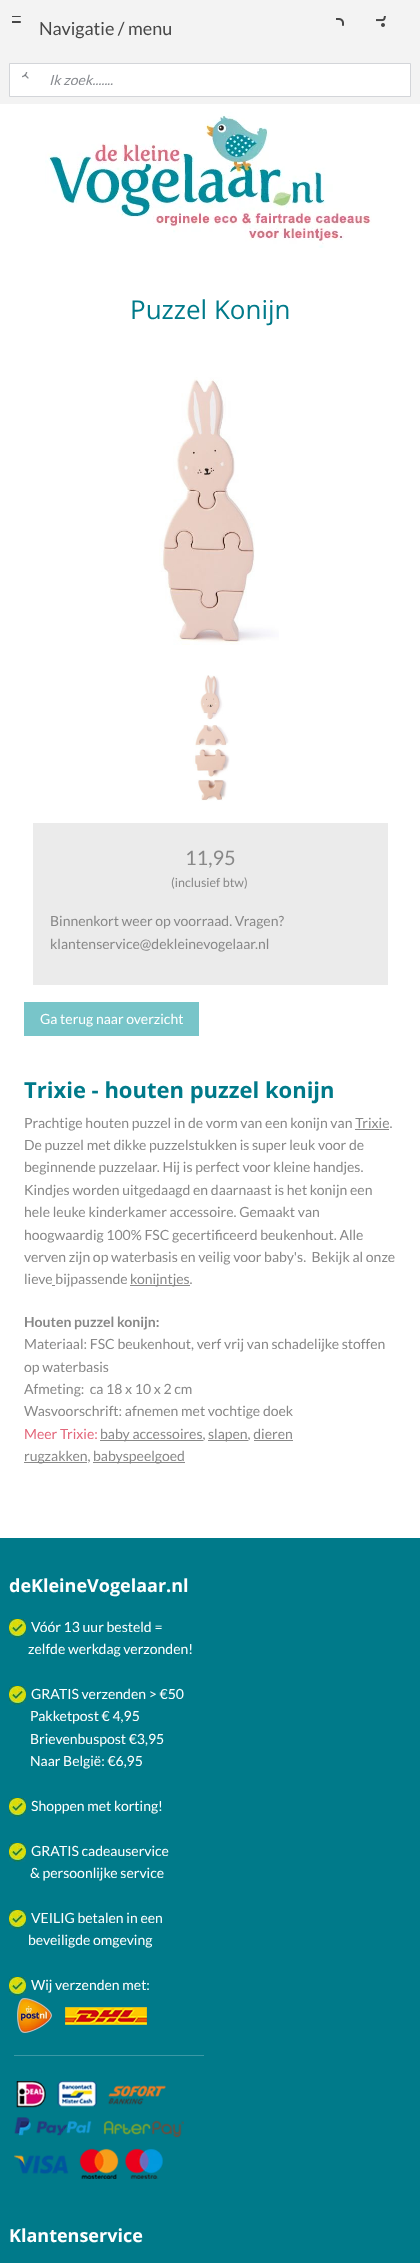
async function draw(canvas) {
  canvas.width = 420
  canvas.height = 2263
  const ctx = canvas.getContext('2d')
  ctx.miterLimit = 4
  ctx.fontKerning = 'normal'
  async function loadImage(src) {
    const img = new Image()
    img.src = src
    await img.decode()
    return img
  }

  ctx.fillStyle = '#fff'
  ctx.fillRect(0, 0, 420, 2263)
  ctx.fillStyle = '#f3f3f3'
  ctx.fillRect(0, 0, 420, 104)
  ctx.drawImage(await loadImage('image0.png'), 12, 16, 9, 7)
  ctx.font = '18px Lato'
  ctx.fillStyle = '#474747'
  ctx.fillText('Navigatie / menu', 39, 35)
  ctx.drawImage(await loadImage('image1.png'), 336, 18, 8, 8)
  ctx.drawImage(await loadImage('image2.png'), 376, 16, 10, 11)
  ctx.fillStyle = '#fff'
  ctx.beginPath()
  ctx.rect(9.5, 63.5, 401, 33)
  ctx.fill()
  ctx.strokeStyle = '#d3d5d9'
  ctx.stroke()
  ctx.drawImage(await loadImage('image3.png'), 22, 72, 7, 7)
  ctx.font = 'italic 14px Lato'
  ctx.fillStyle = '#898c91'
  ctx.fillText('Ik zoek.......', 49, 85)
  ctx.drawImage(await loadImage('image4.png'), 45, 112, 327, 136)
  ctx.font = '26px Open Sans'
  ctx.fillStyle = '#007a8a'
  ctx.fillText('Puzzel Konijn', 130, 319)
  ctx.drawImage(await loadImage('image5.png'), 159, 377, 120, 268)
  ctx.drawImage(await loadImage('image6.png'), 193, 675, 37, 126)
  ctx.fillStyle = '#ebebeb'
  ctx.fillRect(33, 823, 355, 162)
  ctx.font = '20px Lato'
  ctx.fillStyle = '#888'
  ctx.fillText('11,95', 185, 865)
  ctx.font = '12.5px Lato'
  ctx.fillText('(inclusief btw)', 171, 887)
  ctx.font = '14px Lato'
  ctx.fillText('Binnenkort weer op voorraad. Vragen?', 50, 926)
  ctx.fillText('klantenservice@dekleinevogelaar.nl', 50, 949)
  ctx.fillStyle = '#78c5c9'
  ctx.fillRect(24, 1002, 175, 34)
  ctx.fillStyle = '#fff'
  ctx.fillText('Ga terug naar overzicht', 40, 1024)
  ctx.font = 'bold 22px Open Sans'
  ctx.fillStyle = '#007a8a'
  ctx.fillText('Trixie - houten puzzel konijn', 24, 1098)
  ctx.font = '14px Lato'
  ctx.fillStyle = '#888'
  ctx.fillText('Prachtige houten puzzel in de vorm van een konijn van Trixie.', 24, 1128)
  ctx.fillRect(355, 1129, 34, 1)
  ctx.fillText('De puzzel met dikke puzzelstukken is super leuk voor de', 24, 1150)
  ctx.fillText('beginnende puzzelaar. Hij is perfect voor kleine handjes.', 24, 1172)
  ctx.fillText('Kindjes worden uitgedaagd en daarnaast is het konijn een', 24, 1195)
  ctx.fillText('hele leuke kinderkamer accessoire. Gemaakt van', 24, 1217)
  ctx.fillText('hoogwaardig 100% FSC gecertificeerd beukenhout. Alle', 24, 1240)
  ctx.fillText('verven zijn op waterbasis en veilig voor baby\'s.  Bekijk al onze', 24, 1262)
  ctx.fillText('lieve bijpassende', 24, 1284)
  ctx.fillRect(130, 1285, 60, 1)
  ctx.fillText('konijntjes.', 130, 1284)
  ctx.fillRect(52, 1285, 3, 1)
  ctx.font = 'bold 14px Lato'
  ctx.fillText('Houten puzzel konijn:', 24, 1327)
  ctx.font = '14px Lato'
  ctx.fillText('Materiaal: FSC beukenhout, verf vrij van schadelijke stoffen', 24, 1349)
  ctx.fillText('op waterbasis', 24, 1372)
  ctx.fillText('Afmeting:  ca 18 x 10 x 2 cm', 24, 1394)
  ctx.fillText('Wasvoorschrift: afnemen met vochtige doek', 24, 1416)
  ctx.fillStyle = '#e3677b'
  ctx.fillText('Meer Trixie:', 24, 1439)
  ctx.fillStyle = '#888'
  ctx.fillRect(100, 1440, 103, 1)
  ctx.fillText('baby accessoires,', 100, 1439)
  ctx.fillRect(208, 1440, 40, 1)
  ctx.fillText('slapen, dieren', 208, 1439)
  ctx.fillRect(24, 1462, 63, 1)
  ctx.fillText('rugzakken,', 24, 1461)
  ctx.fillRect(254, 1440, 39, 1)
  ctx.fillRect(93, 1462, 92, 1)
  ctx.fillText('babyspeelgoed', 93, 1461)
  ctx.fillStyle = '#007a8a'
  ctx.fillRect(0, 1538, 420, 725)
  ctx.font = 'bold 18px Open Sans'
  ctx.fillStyle = '#fff'
  ctx.fillText('deKleineVogelaar.nl', 9, 1592)
  ctx.drawImage(await loadImage('image7.png'), 9, 1619, 17, 19)
  ctx.font = '14px Lato'
  ctx.fillText('Vóór 13 uur besteld =', 31, 1632)
  ctx.fillText('zelfde werkdag verzonden!', 28, 1654)
  ctx.drawImage(await loadImage('image7.png'), 9, 1686, 17, 19)
  ctx.fillText('GRATIS verzenden > €50', 31, 1699)
  ctx.fillText('Pakketpost € 4,95', 30, 1721)
  ctx.fillText('Brievenbuspost €3,95', 30, 1744)
  ctx.fillText('Naar België: €6,95', 30, 1766)
  ctx.drawImage(await loadImage('image7.png'), 9, 1798, 17, 19)
  ctx.fillText('Shoppen met korting!', 31, 1811)
  ctx.drawImage(await loadImage('image7.png'), 9, 1843, 17, 19)
  ctx.fillText('GRATIS cadeauservice', 31, 1856)
  ctx.fillText('& persoonlijke service', 30, 1878)
  ctx.drawImage(await loadImage('image7.png'), 9, 1910, 17, 19)
  ctx.fillText('VEILIG betalen in een', 31, 1923)
  ctx.fillText('beveiligde omgeving', 28, 1945)
  ctx.drawImage(await loadImage('image7.png'), 9, 1977, 17, 19)
  ctx.fillText('Wij verzenden met:', 31, 1990)
  ctx.drawImage(await loadImage('image8.png'), 14, 1998, 190, 181)
  ctx.font = 'bold 18px Open Sans'
  ctx.fillText('Klantenservice', 9, 2242)
}

draw(document.querySelector('canvas'))
